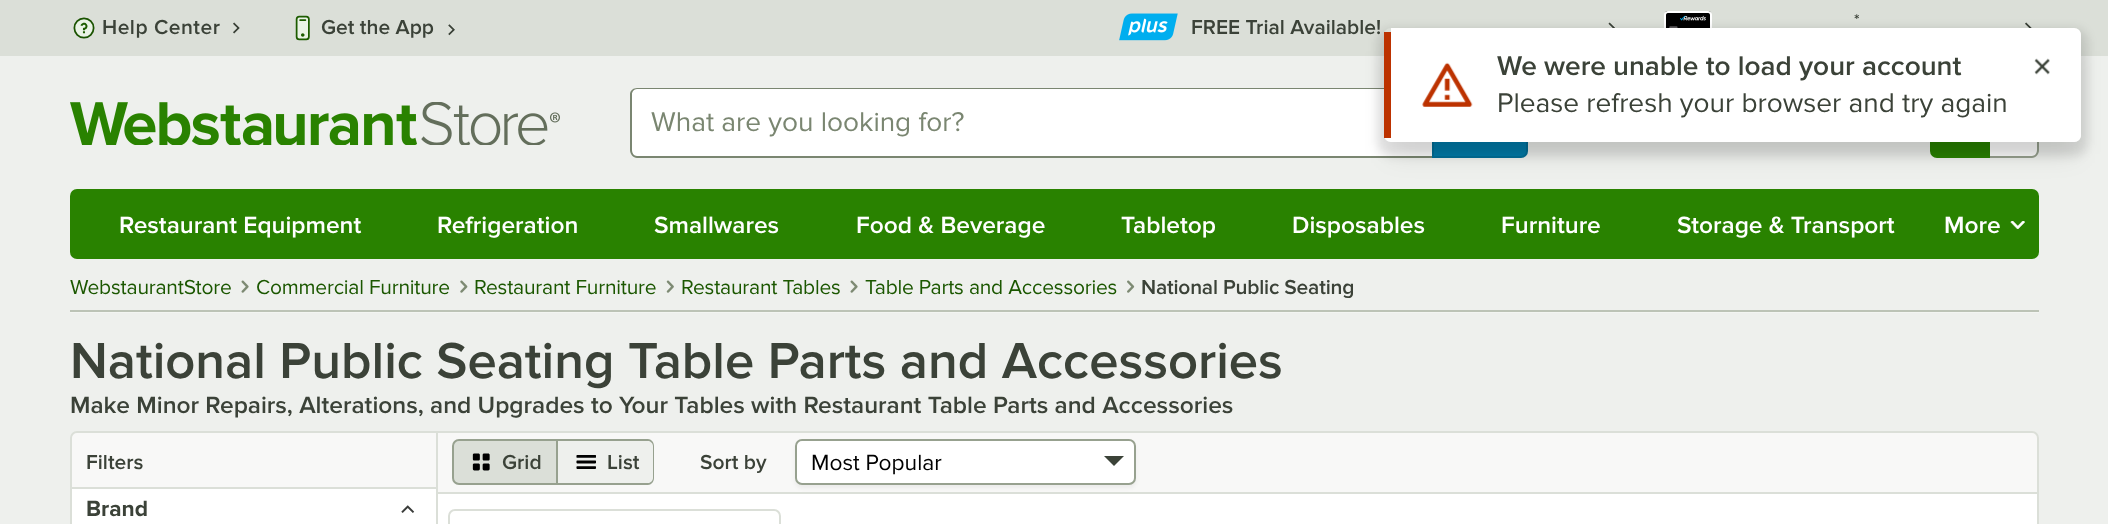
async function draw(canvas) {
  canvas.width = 2108
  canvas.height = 524
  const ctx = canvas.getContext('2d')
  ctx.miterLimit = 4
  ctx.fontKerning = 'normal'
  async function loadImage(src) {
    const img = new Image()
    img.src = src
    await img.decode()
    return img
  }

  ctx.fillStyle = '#eef0ed'
  ctx.fillRect(0, 0, 2108, 524)
  ctx.fillStyle = '#dbdfd8'
  ctx.fillRect(0, 0, 2108, 56)
  ctx.drawImage(await loadImage('image0.png'), 73, 17, 22, 22)
  ctx.letterSpacing = '0.5px'
  ctx.font = '600 21px Proxima Nova'
  ctx.fillStyle = '#3b4238'
  ctx.fillText('Help Center', 102, 34)
  ctx.drawImage(await loadImage('image1.png'), 233, 22, 7, 12)
  ctx.drawImage(await loadImage('image2.png'), 295, 15, 15, 26)
  ctx.letterSpacing = '0px'
  ctx.fillText('Get the App', 321, 34)
  ctx.drawImage(await loadImage('image3.png'), 448, 24, 7, 12)
  ctx.drawImage(await loadImage('image4.png'), 1664, 11, 48, 17)
  ctx.font = '600 16px Proxima Nova'
  ctx.fillText('*', 1854, 25)
  ctx.drawImage(await loadImage('image5.png'), 2025, 22, 7, 6)
  ctx.drawImage(await loadImage('image6.png'), 1119, 13, 59, 28)
  ctx.font = '600 21px Proxima Nova'
  ctx.fillText('FREE Trial Available!', 1191, 34)
  ctx.drawImage(await loadImage('image7.png'), 1608, 22, 7, 6)
  ctx.drawImage(await loadImage('image8.png'), 70, 102, 490, 43)
  ctx.fillStyle = '#fff'
  ctx.beginPath()
  ctx.roundRect(630, 88, 802, 70, [7, 0, 0, 7])
  ctx.fill()
  ctx.fillStyle = '#7a8671'
  ctx.beginPath()
  ctx.moveTo(637, 88)
  ctx.lineTo(1432, 88)
  ctx.lineTo(1432, 158)
  ctx.lineTo(637, 158)
  ctx.bezierCurveTo(633, 158, 630, 154, 630, 150)
  ctx.lineTo(630, 94)
  ctx.bezierCurveTo(630, 91, 633, 88, 637, 88)
  ctx.closePath()
  ctx.moveTo(637, 89)
  ctx.lineTo(1432, 89)
  ctx.lineTo(1432, 156)
  ctx.lineTo(637, 156)
  ctx.bezierCurveTo(634, 156, 632, 153, 632, 150)
  ctx.lineTo(632, 94)
  ctx.bezierCurveTo(632, 92, 634, 89, 637, 89)
  ctx.closePath()
  ctx.fill('evenodd')
  ctx.fillStyle = '#007caa'
  ctx.beginPath()
  ctx.roundRect(1432, 88, 96, 70, [0, 7, 7, 0])
  ctx.fill()
  ctx.beginPath()
  ctx.roundRect(1433, 89, 94, 68, [0, 6, 6, 0])
  ctx.strokeStyle = '#0000001a'
  ctx.lineWidth = 2
  ctx.stroke()
  ctx.font = '28px Proxima Nova'
  ctx.fillStyle = '#7a8671'
  ctx.fillText('What are you looking for?', 651, 131)
  ctx.fillStyle = '#298200'
  ctx.beginPath()
  ctx.roundRect(1930, 88, 60, 70, [7, 0, 0, 7])
  ctx.fill()
  ctx.fillStyle = '#fff'
  ctx.beginPath()
  ctx.roundRect(1990, 89, 47, 67, [0, 5, 5, 0])
  ctx.fill()
  ctx.fillStyle = '#97a18f'
  ctx.beginPath()
  ctx.moveTo(1990, 88)
  ctx.lineTo(2032, 88)
  ctx.bezierCurveTo(2036, 88, 2039, 91, 2039, 94)
  ctx.lineTo(2039, 150)
  ctx.bezierCurveTo(2039, 154, 2036, 158, 2032, 158)
  ctx.lineTo(1990, 158)
  ctx.closePath()
  ctx.moveTo(1990, 89)
  ctx.lineTo(2032, 89)
  ctx.bezierCurveTo(2035, 89, 2037, 92, 2037, 94)
  ctx.lineTo(2037, 150)
  ctx.bezierCurveTo(2037, 153, 2035, 156, 2032, 156)
  ctx.lineTo(1990, 156)
  ctx.closePath()
  ctx.fill('evenodd')
  ctx.fillStyle = '#298200'
  ctx.beginPath()
  ctx.roundRect(70, 189, 1969, 70, 7)
  ctx.fill()
  ctx.font = '600 24.5px Proxima Nova'
  ctx.fillStyle = '#fff'
  ctx.fillText('Restaurant Equipment', 119, 233)
  ctx.fillText('Refrigeration', 437, 233)
  ctx.fillText('Smallwares', 654, 233)
  ctx.fillText('Food & Beverage', 856, 233)
  ctx.fillText('Tabletop', 1121, 233)
  ctx.fillText('Disposables', 1292, 233)
  ctx.fillText('Furniture', 1501, 233)
  ctx.fillText('Storage & Transport', 1677, 233)
  ctx.fillText('More', 1944, 233)
  ctx.drawImage(await loadImage('image9.png'), 2010, 221, 15, 8)
  ctx.save()
  ctx.beginPath()
  ctx.moveTo(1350, 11)
  ctx.lineTo(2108, 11)
  ctx.lineTo(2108, 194)
  ctx.lineTo(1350, 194)
  ctx.closePath()
  ctx.moveTo(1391, 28)
  ctx.lineTo(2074, 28)
  ctx.bezierCurveTo(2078, 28, 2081, 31, 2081, 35)
  ctx.lineTo(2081, 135)
  ctx.bezierCurveTo(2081, 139, 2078, 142, 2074, 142)
  ctx.lineTo(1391, 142)
  ctx.bezierCurveTo(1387, 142, 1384, 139, 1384, 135)
  ctx.lineTo(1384, 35)
  ctx.bezierCurveTo(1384, 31, 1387, 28, 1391, 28)
  ctx.closePath()
  ctx.clip('evenodd')
  ctx.fillStyle = '#0000001a'
  ctx.filter = 'blur(13px)'
  ctx.beginPath()
  ctx.roundRect(1390, 51, 686, 103, 2)
  ctx.fill()
  ctx.filter = 'none'
  ctx.restore()
  ctx.save()
  ctx.beginPath()
  ctx.moveTo(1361, 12)
  ctx.lineTo(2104, 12)
  ctx.lineTo(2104, 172)
  ctx.lineTo(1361, 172)
  ctx.closePath()
  ctx.moveTo(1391, 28)
  ctx.lineTo(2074, 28)
  ctx.bezierCurveTo(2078, 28, 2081, 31, 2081, 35)
  ctx.lineTo(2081, 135)
  ctx.bezierCurveTo(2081, 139, 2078, 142, 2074, 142)
  ctx.lineTo(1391, 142)
  ctx.bezierCurveTo(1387, 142, 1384, 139, 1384, 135)
  ctx.lineTo(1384, 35)
  ctx.bezierCurveTo(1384, 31, 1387, 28, 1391, 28)
  ctx.closePath()
  ctx.clip('evenodd')
  ctx.fillStyle = '#0000001a'
  ctx.filter = 'blur(5px)'
  ctx.beginPath()
  ctx.roundRect(1377, 28, 711, 128, 14)
  ctx.fill()
  ctx.filter = 'none'
  ctx.restore()
  ctx.beginPath()
  ctx.moveTo(1391, 28)
  ctx.lineTo(2074, 28)
  ctx.bezierCurveTo(2078, 28, 2081, 31, 2081, 35)
  ctx.lineTo(2081, 135)
  ctx.bezierCurveTo(2081, 139, 2078, 142, 2074, 142)
  ctx.lineTo(1391, 142)
  ctx.closePath()
  ctx.fill()
  ctx.fillStyle = '#bc3200'
  ctx.fillRect(1384, 32, 7, 106)
  ctx.drawImage(await loadImage('image10.png'), 1422, 62, 51, 45)
  ctx.font = '600 28px Proxima Nova'
  ctx.fillStyle = '#3b4238'
  ctx.fillText('We were unable to load your account', 1497, 75)
  ctx.font = '28px Proxima Nova'
  ctx.fillText('Please refresh your browser and try again', 1497, 112)
  ctx.drawImage(await loadImage('image11.png'), 2034, 58, 16, 17)
  ctx.fillStyle = '#f3f5f2'
  ctx.beginPath()
  ctx.moveTo(70, 312)
  ctx.lineTo(70, 313)
  ctx.lineTo(2039, 313)
  ctx.lineTo(2039, 261)
  ctx.lineTo(2039, 312)
  ctx.closePath()
  ctx.fill()
  ctx.fillStyle = '#bcc3b6'
  ctx.fillRect(70, 310, 1969, 2)
  ctx.letterSpacing = '-0.2px'
  ctx.font = '21px Proxima Nova'
  ctx.fillStyle = '#1b5700'
  ctx.fillText('WebstaurantStore', 70, 294)
  ctx.drawImage(await loadImage('image12.png'), 241, 280, 8, 13)
  ctx.fillText('Commercial Furniture', 256, 294)
  ctx.drawImage(await loadImage('image13.png'), 460, 280, 8, 13)
  ctx.fillText('Restaurant Furniture', 474, 294)
  ctx.drawImage(await loadImage('image14.png'), 666, 280, 8, 13)
  ctx.fillText('Restaurant Tables', 681, 294)
  ctx.drawImage(await loadImage('image12.png'), 850, 280, 8, 13)
  ctx.fillText('Table Parts and Accessories', 865, 294)
  ctx.drawImage(await loadImage('image15.png'), 1127, 280, 8, 13)
  ctx.font = '600 21px Proxima Nova'
  ctx.fillStyle = '#3b4238'
  ctx.fillText('National Public Seating', 1141, 294)
  ctx.letterSpacing = '0px'
  ctx.font = '600 52.5px Proxima Nova'
  ctx.fillText('National Public Seating Table Parts and Accessories', 70, 378)
  ctx.font = '600 24.5px Proxima Nova'
  ctx.fillText('Make Minor Repairs, Alterations, and Upgrades to Your Tables with Restaurant Table Parts and Accessories', 70, 413)
  ctx.fillStyle = '#dbdfd8'
  ctx.beginPath()
  ctx.moveTo(70, 488)
  ctx.lineTo(436, 488)
  ctx.lineTo(436, 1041)
  ctx.lineTo(77, 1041)
  ctx.bezierCurveTo(73, 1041, 70, 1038, 70, 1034)
  ctx.closePath()
  ctx.moveTo(72, 488)
  ctx.lineTo(436, 488)
  ctx.lineTo(436, 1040)
  ctx.lineTo(77, 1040)
  ctx.bezierCurveTo(74, 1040, 72, 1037, 72, 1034)
  ctx.closePath()
  ctx.fill('evenodd')
  ctx.fillRect(2037, 492, 2, 32)
  ctx.fillRect(436, 492, 2, 32)
  ctx.fillStyle = '#f8f8f7'
  ctx.beginPath()
  ctx.roundRect(71, 432, 1967, 61, [6, 6, 0, 0])
  ctx.fill()
  ctx.strokeStyle = '#dbdfd8'
  ctx.stroke()
  ctx.fillStyle = '#dbdfd8'
  ctx.fillRect(436, 432, 2, 60)
  ctx.font = '600 21px Proxima Nova'
  ctx.fillStyle = '#3b4238'
  ctx.fillText('Filters', 86, 469)
  ctx.fillStyle = '#dbdfd8'
  ctx.beginPath()
  ctx.roundRect(453, 440, 104, 44, [6, 0, 0, 6])
  ctx.fill()
  ctx.strokeStyle = '#97a18f'
  ctx.stroke()
  ctx.drawImage(await loadImage('image16.png'), 472, 453, 18, 18)
  ctx.fillStyle = '#3b4238'
  ctx.fillText('Grid', 502, 469)
  ctx.fillStyle = '#eef0ed'
  ctx.beginPath()
  ctx.roundRect(558, 441, 95, 42, [0, 5, 5, 0])
  ctx.fill()
  ctx.fillStyle = '#97a18f'
  ctx.beginPath()
  ctx.moveTo(558, 439)
  ctx.lineTo(648, 439)
  ctx.bezierCurveTo(651, 439, 654, 442, 654, 446)
  ctx.lineTo(654, 478)
  ctx.bezierCurveTo(654, 482, 651, 485, 648, 485)
  ctx.lineTo(558, 485)
  ctx.closePath()
  ctx.moveTo(558, 441)
  ctx.lineTo(648, 441)
  ctx.bezierCurveTo(650, 441, 653, 443, 653, 446)
  ctx.lineTo(653, 478)
  ctx.bezierCurveTo(653, 481, 650, 483, 648, 483)
  ctx.lineTo(558, 483)
  ctx.closePath()
  ctx.fill('evenodd')
  ctx.drawImage(await loadImage('image17.png'), 576, 455, 20, 14)
  ctx.fillStyle = '#3b4238'
  ctx.fillText('List', 607, 469)
  ctx.fillText('Sort by', 700, 469)
  ctx.fillStyle = '#fff'
  ctx.fillRect(438, 494, 1599, 30)
  ctx.fillStyle = '#0000000d'
  ctx.filter = 'blur(2px)'
  ctx.beginPath()
  ctx.roundRect(795, 443, 341, 45, 7)
  ctx.fill()
  ctx.filter = 'none'
  ctx.fillStyle = '#fff'
  ctx.beginPath()
  ctx.roundRect(796, 440, 339, 44, 6)
  ctx.fill()
  ctx.stroke()
  ctx.font = '22.75px Proxima Nova'
  ctx.fillStyle = '#000'
  ctx.fillText('Most Popular', 811, 470)
  ctx.fillStyle = '#3b4238'
  ctx.beginPath()
  ctx.moveTo(1114, 466)
  ctx.lineTo(1104, 456)
  ctx.lineTo(1124, 456)
  ctx.closePath()
  ctx.fill()
  ctx.fillStyle = '#fff'
  ctx.fillRect(72, 489, 364, 35)
  ctx.fillStyle = '#dbdfd8'
  ctx.fillRect(72, 487, 364, 2)
  ctx.font = 'bold 22.75px Proxima Nova'
  ctx.fillStyle = '#3b4238'
  ctx.fillText('Brand', 86, 516)
  ctx.drawImage(await loadImage('image18.png'), 401, 505, 14, 8)
  ctx.beginPath()
  ctx.roundRect(449, 510, 331, 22, 6)
  ctx.strokeStyle = '#dbdfd8'
  ctx.stroke()
}

draw(document.querySelector('canvas'))
